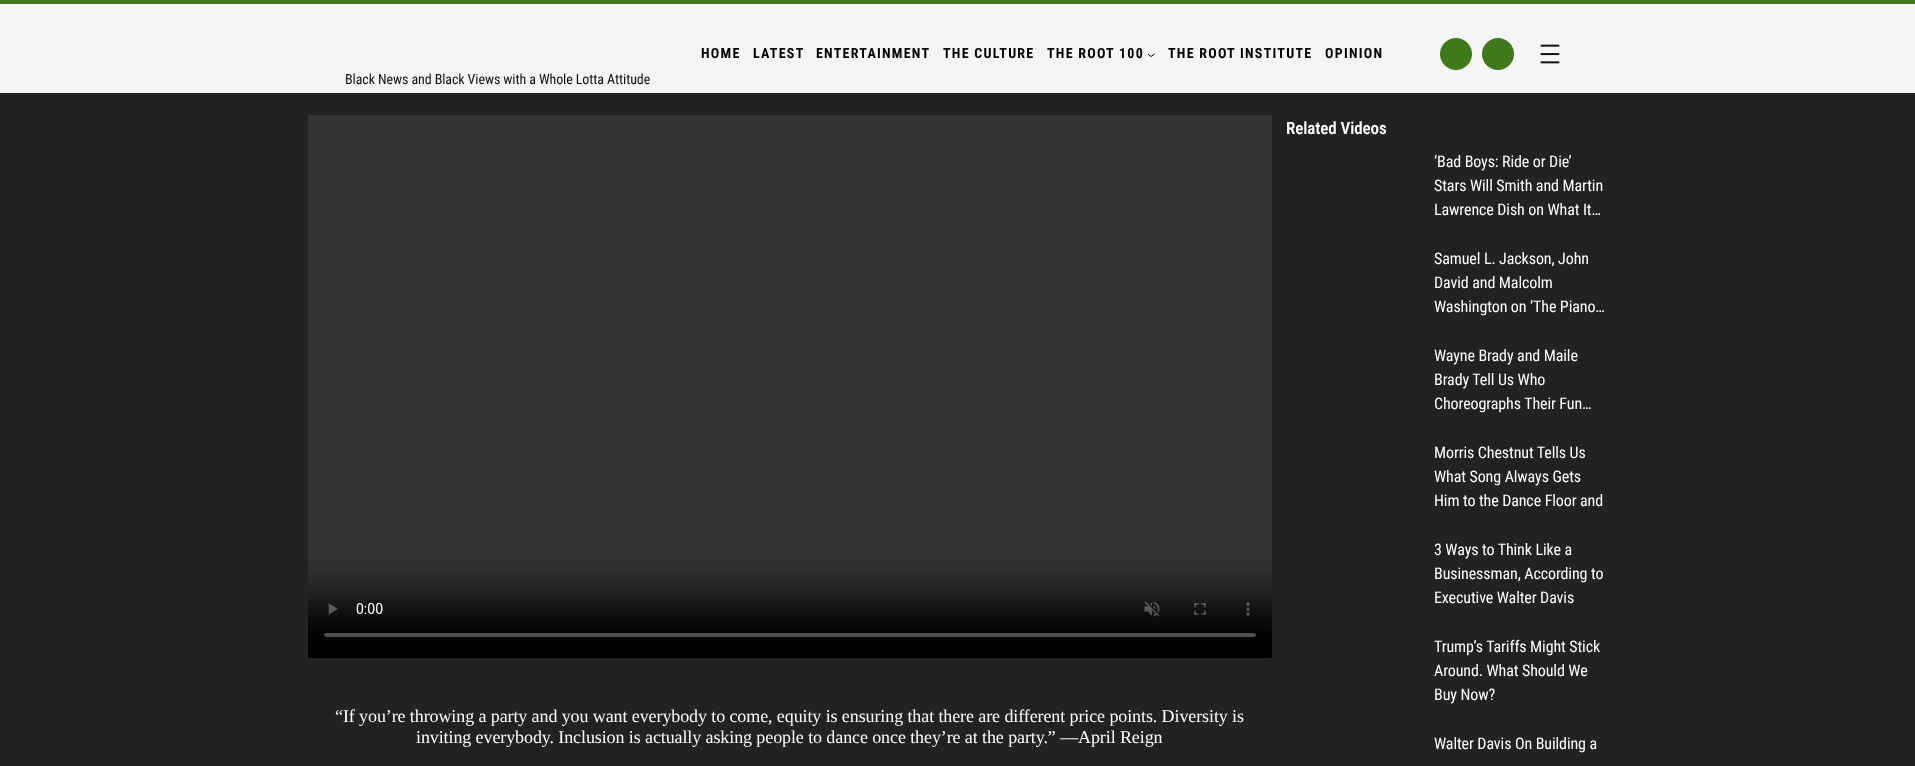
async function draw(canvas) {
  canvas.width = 1915
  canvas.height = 766
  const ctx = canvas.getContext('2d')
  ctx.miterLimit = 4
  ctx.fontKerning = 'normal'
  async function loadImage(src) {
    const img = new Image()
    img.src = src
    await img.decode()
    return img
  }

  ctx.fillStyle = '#f5f5f5'
  ctx.fillRect(0, 0, 1915, 766)
  ctx.fillStyle = '#3f7a1a'
  ctx.fillRect(0, 0, 1915, 4)
  ctx.letterSpacing = '1.25px'
  ctx.font = 'bold 14px Roboto Condensed'
  ctx.fillStyle = '#000'
  ctx.fillText('HOME', 701, 58)
  ctx.fillText('LATEST', 753, 58)
  ctx.fillText('ENTERTAINMENT', 816, 58)
  ctx.fillText('THE CULTURE', 943, 58)
  ctx.fillText('THE ROOT 100', 1047, 58)
  ctx.beginPath()
  ctx.moveTo(1148, 54)
  ctx.lineTo(1151, 56.5)
  ctx.lineTo(1154.5, 54)
  ctx.strokeStyle = '#000'
  ctx.stroke()
  ctx.fillText('THE ROOT INSTITUTE', 1168, 58)
  ctx.fillText('OPINION', 1325, 58)
  ctx.fillStyle = '#3f7a1a'
  ctx.beginPath()
  ctx.arc(1456, 54, 16, 0, 2 * Math.PI)
  ctx.fill()
  ctx.beginPath()
  ctx.arc(1498, 54, 16, 0, 2 * Math.PI)
  ctx.fill()
  ctx.drawImage(await loadImage('image0.png'), 1540, 44, 20, 20)
  ctx.letterSpacing = '-0.1px'
  ctx.font = '14px Roboto Condensed'
  ctx.fillStyle = '#111'
  ctx.fillText('Black News and Black Views with a Whole Lotta Attitude', 345, 84)
  ctx.fillStyle = '#222'
  ctx.fillRect(0, 93, 1915, 673)
  ctx.drawImage(await loadImage('image1.png'), 308, 115, 964, 542)
  ctx.fillStyle = '#000'
  ctx.fillRect(308, 657, 963, 1)
  ctx.font = '18px Liberation Serif'
  ctx.fillStyle = '#fff'
  ctx.fillText('“If you’re throwing a party and you want everybody to come, equity is ensuring that there are different price points. Diversity is', 335, 722)
  ctx.fillText('inviting everybody. Inclusion is actually asking people to dance once they’re at the party.” —April Reign', 416, 743)
  ctx.font = '600 17px Roboto Condensed'
  ctx.fillText('Related Videos', 1286, 134)
  ctx.font = '16px Roboto Condensed'
  ctx.fillText('‘Bad Boys: Ride or Die’', 1434, 167)
  ctx.fillText('Stars Will Smith and Martin', 1434, 191)
  ctx.fillText('Lawrence Dish on What It…', 1434, 215)
  ctx.fillText('Samuel L. Jackson, John', 1434, 264)
  ctx.fillText('David and Malcolm', 1434, 288)
  ctx.fillText('Washington on ‘The Piano…', 1434, 312)
  ctx.fillText('Wayne Brady and Maile', 1434, 361)
  ctx.fillText('Brady Tell Us Who', 1434, 385)
  ctx.fillText('Choreographs Their Fun…', 1434, 409)
  ctx.fillText('Morris Chestnut Tells Us', 1434, 458)
  ctx.fillText('What Song Always Gets', 1434, 482)
  ctx.fillText('Him to the Dance Floor and', 1434, 506)
  ctx.fillText('3 Ways to Think Like a', 1434, 555)
  ctx.fillText('Businessman, According to', 1434, 579)
  ctx.fillText('Executive Walter Davis', 1434, 603)
  ctx.fillText('Trump’s Tariffs Might Stick', 1434, 652)
  ctx.fillText('Around. What Should We', 1434, 676)
  ctx.fillText('Buy Now?', 1434, 700)
  ctx.fillText('Walter Davis On Building a', 1434, 749)
}

draw(document.querySelector('canvas'))
